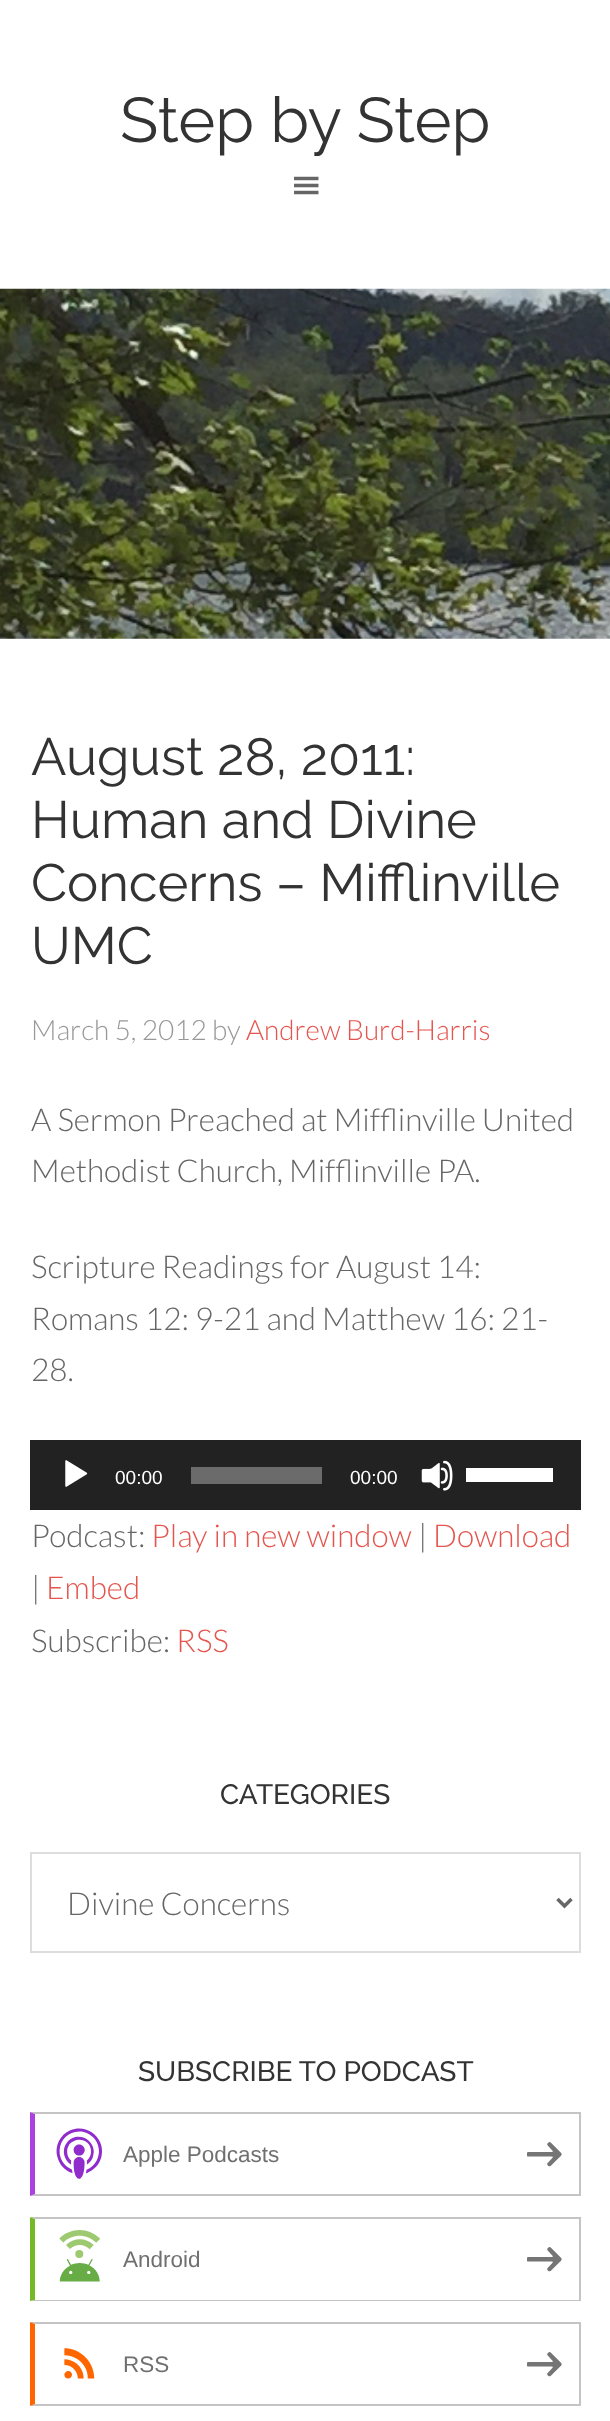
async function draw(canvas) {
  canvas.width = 610
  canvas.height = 2421
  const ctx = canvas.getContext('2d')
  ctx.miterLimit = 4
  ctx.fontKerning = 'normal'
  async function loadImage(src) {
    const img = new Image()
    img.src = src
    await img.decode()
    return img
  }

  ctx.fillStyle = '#fff'
  ctx.fillRect(0, 0, 610, 2421)
  ctx.font = '63px Raleway'
  ctx.fillStyle = '#333'
  ctx.fillText('Step by Step', 120, 142)
  ctx.drawImage(await loadImage('image0.png'), 294, 176, 25, 19)
  ctx.drawImage(await loadImage('image1.png'), 0, 288, 610, 351)
  ctx.font = '52.5px Raleway'
  ctx.fillText('August 28, 2011:', 31, 775)
  ctx.fillText('Human and Divine', 31, 838)
  ctx.fillText('Concerns – Mifflinville', 31, 901)
  ctx.fillText('UMC', 31, 964)
  ctx.font = '300 28px Lato'
  ctx.fillStyle = '#999'
  ctx.fillText('March 5, 2012 by', 31, 1040)
  ctx.fillStyle = '#e5554e'
  ctx.fillText('Andrew Burd-Harris', 246, 1040)
  ctx.font = '300 31.5px Lato'
  ctx.fillStyle = '#666'
  ctx.fillText('A Sermon Preached at Mifflinville United', 31, 1131)
  ctx.fillText('Methodist Church, Mifflinville PA.', 31, 1182)
  ctx.fillText('Scripture Readings for August 14:', 31, 1278)
  ctx.fillText('Romans 12: 9-21 and Matthew 16: 21-', 31, 1330)
  ctx.fillText('28.', 31, 1381)
  ctx.fillStyle = '#222'
  ctx.fillRect(30, 1440, 551, 70)
  ctx.drawImage(await loadImage('image2.png'), 65, 1460, 23, 27)
  ctx.font = '19px Liberation Sans'
  ctx.fillStyle = '#fff'
  ctx.fillText('00:00', 115, 1484)
  ctx.fillStyle = '#6b6b6b'
  ctx.fillRect(191, 1467, 131, 17)
  ctx.fillStyle = '#fff'
  ctx.fillText('00:00', 350, 1484)
  ctx.drawImage(await loadImage('image3.png'), 421, 1460, 32, 31)
  ctx.fillRect(466, 1468, 87, 14)
  ctx.font = '300 31.5px Lato'
  ctx.fillStyle = '#666'
  ctx.fillText('Podcast:', 31, 1547)
  ctx.fillStyle = '#e5554e'
  ctx.fillText('Play in new window', 151, 1547)
  ctx.fillStyle = '#666'
  ctx.fillText('|', 418, 1547)
  ctx.fillStyle = '#e5554e'
  ctx.fillText('Download', 433, 1547)
  ctx.fillStyle = '#666'
  ctx.fillText('|', 31, 1599)
  ctx.fillStyle = '#e5554e'
  ctx.fillText('Embed', 46, 1599)
  ctx.fillStyle = '#666'
  ctx.fillText('Subscribe:', 31, 1652)
  ctx.fillStyle = '#e5554e'
  ctx.fillText('RSS', 176, 1652)
  ctx.font = '500 28px Raleway'
  ctx.fillStyle = '#333'
  ctx.fillText('CATEGORIES', 220, 1804)
  ctx.strokeStyle = '#ddd'
  ctx.lineWidth = 2
  ctx.strokeRect(31, 1853, 549, 99)
  ctx.beginPath()
  ctx.moveTo(557.5, 1899)
  ctx.lineTo(564.5, 1906)
  ctx.lineTo(571.5, 1899)
  ctx.strokeStyle = '#666'
  ctx.lineWidth = 3.5
  ctx.stroke()
  ctx.font = '300 31.5px Lato'
  ctx.fillStyle = '#666'
  ctx.fillText('Divine Concerns', 67, 1915)
  ctx.font = '500 28px Raleway'
  ctx.fillStyle = '#333'
  ctx.fillText('SUBSCRIBE TO PODCAST', 138, 2081)
  ctx.fillStyle = '#c4c4c4'
  ctx.beginPath()
  ctx.moveTo(30, 2112)
  ctx.lineTo(581, 2112)
  ctx.lineTo(579, 2114)
  ctx.lineTo(35, 2114)
  ctx.closePath()
  ctx.fill()
  ctx.fillRect(579, 2112, 2, 84)
  ctx.beginPath()
  ctx.moveTo(581, 2196)
  ctx.lineTo(30, 2196)
  ctx.lineTo(35, 2194)
  ctx.lineTo(579, 2194)
  ctx.closePath()
  ctx.fill()
  ctx.fillStyle = '#ab42df'
  ctx.beginPath()
  ctx.moveTo(30, 2196)
  ctx.lineTo(30, 2112)
  ctx.lineTo(35, 2114)
  ctx.lineTo(35, 2194)
  ctx.closePath()
  ctx.fill()
  ctx.drawImage(await loadImage('image4.png'), 56, 2128, 46, 51)
  ctx.font = '22.5px Liberation Sans'
  ctx.fillStyle = '#707070'
  ctx.fillText('Apple Podcasts', 123, 2162)
  ctx.drawImage(await loadImage('image5.png'), 527, 2142, 35, 25)
  ctx.fillStyle = '#c4c4c4'
  ctx.beginPath()
  ctx.moveTo(30, 2217)
  ctx.lineTo(581, 2217)
  ctx.lineTo(579, 2219)
  ctx.lineTo(35, 2219)
  ctx.closePath()
  ctx.fill()
  ctx.fillRect(579, 2217, 2, 84)
  ctx.beginPath()
  ctx.moveTo(581, 2301)
  ctx.lineTo(30, 2301)
  ctx.lineTo(35, 2300)
  ctx.lineTo(579, 2300)
  ctx.closePath()
  ctx.fill()
  ctx.fillStyle = '#75ba26'
  ctx.beginPath()
  ctx.moveTo(30, 2301)
  ctx.lineTo(30, 2217)
  ctx.lineTo(35, 2219)
  ctx.lineTo(35, 2300)
  ctx.closePath()
  ctx.fill()
  ctx.drawImage(await loadImage('image6.png'), 59, 2230, 42, 52)
  ctx.fillStyle = '#707070'
  ctx.fillText('Android', 123, 2267)
  ctx.drawImage(await loadImage('image5.png'), 527, 2247, 35, 25)
  ctx.fillStyle = '#c4c4c4'
  ctx.beginPath()
  ctx.moveTo(30, 2322)
  ctx.lineTo(581, 2322)
  ctx.lineTo(579, 2324)
  ctx.lineTo(35, 2324)
  ctx.closePath()
  ctx.fill()
  ctx.fillRect(579, 2322, 2, 84)
  ctx.beginPath()
  ctx.moveTo(581, 2406)
  ctx.lineTo(30, 2406)
  ctx.lineTo(35, 2404)
  ctx.lineTo(579, 2404)
  ctx.closePath()
  ctx.fill()
  ctx.fillStyle = '#f60'
  ctx.beginPath()
  ctx.moveTo(30, 2406)
  ctx.lineTo(30, 2322)
  ctx.lineTo(35, 2324)
  ctx.lineTo(35, 2404)
  ctx.closePath()
  ctx.fill()
  ctx.drawImage(await loadImage('image7.png'), 64, 2348, 31, 31)
  ctx.fillStyle = '#707070'
  ctx.fillText('RSS', 123, 2372)
  ctx.drawImage(await loadImage('image5.png'), 527, 2352, 35, 25)
}

draw(document.querySelector('canvas'))
